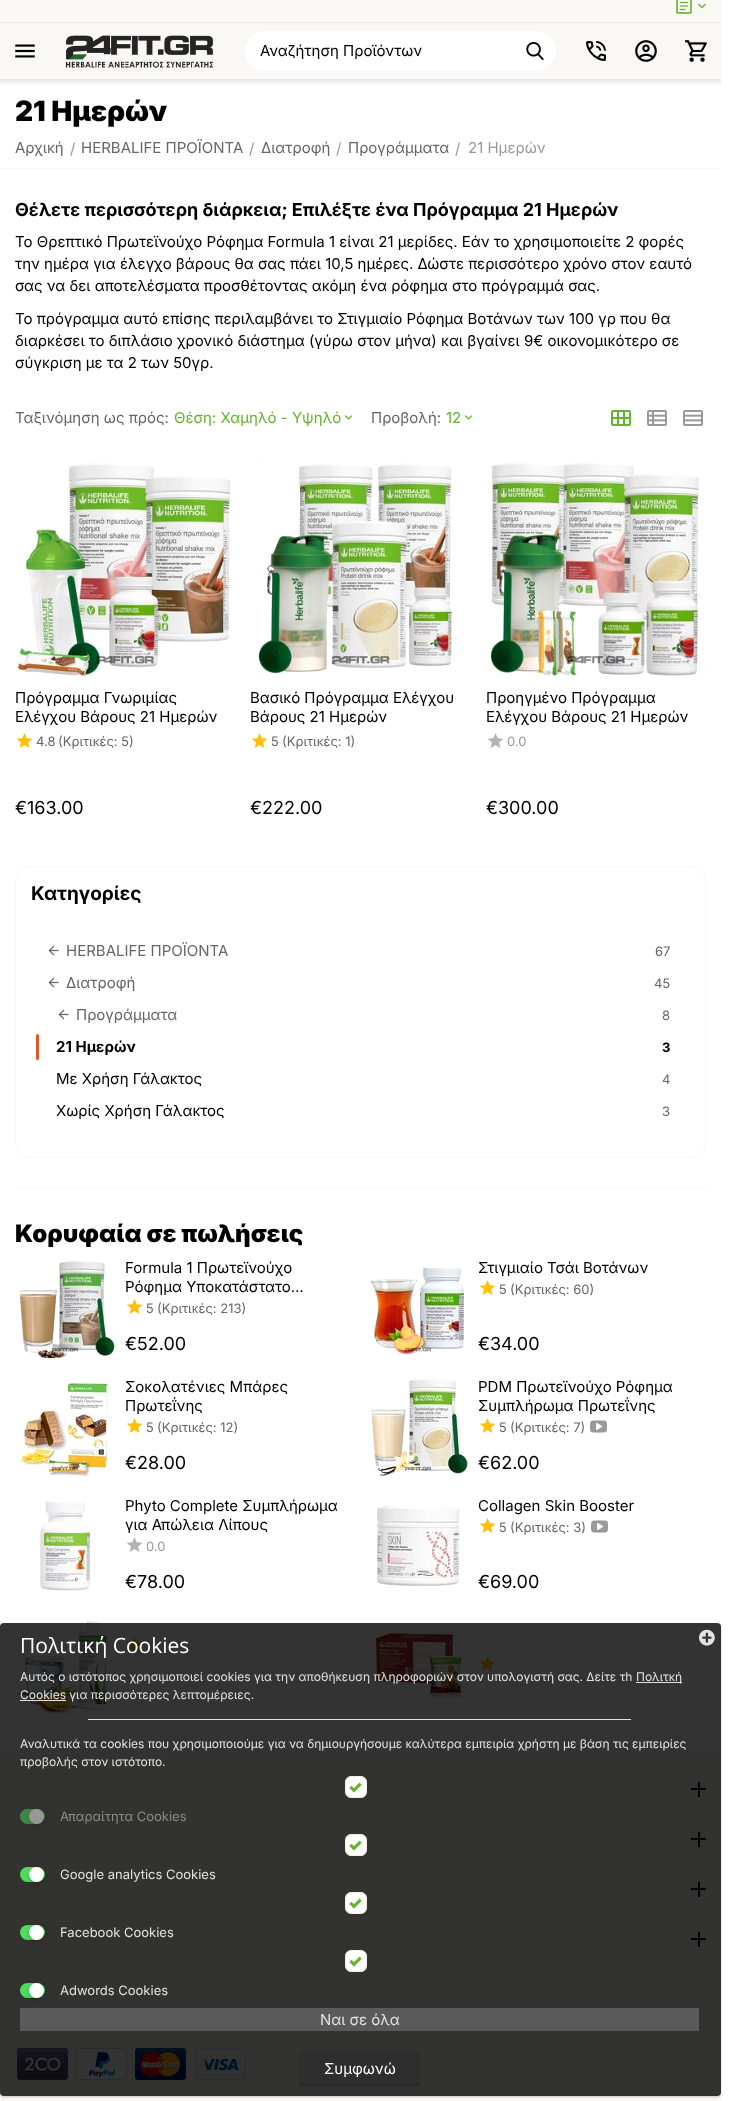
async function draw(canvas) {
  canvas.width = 729
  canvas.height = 2101
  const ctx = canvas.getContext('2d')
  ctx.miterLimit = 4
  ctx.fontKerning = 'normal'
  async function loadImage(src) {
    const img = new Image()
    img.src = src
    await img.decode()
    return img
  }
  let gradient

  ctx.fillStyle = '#fff'
  ctx.fillRect(0, 0, 729, 2101)
  ctx.fillStyle = '#f9f8f4'
  ctx.fillRect(0, 0, 721, 22)
  ctx.fillStyle = '#e8e7e3'
  ctx.fillRect(0, 22, 721, 1)
  ctx.drawImage(await loadImage('image0.png'), 676, 0, 16, 14)
  ctx.drawImage(await loadImage('image1.png'), 698, 3, 8, 6)
  ctx.fillStyle = '#f9f8f4'
  ctx.fillRect(0, 23, 721, 56)
  ctx.drawImage(await loadImage('image2.png'), 15, 44, 20, 14)
  ctx.drawImage(await loadImage('image3.png'), 65, 35, 149, 33)
  ctx.fillStyle = '#fff'
  ctx.beginPath()
  ctx.roundRect(245, 31, 311, 40, 20)
  ctx.fill()
  ctx.font = '15px Inter'
  ctx.fillStyle = '#000'
  ctx.fillText('Αναζήτηση Προϊόντων', 260, 56)
  ctx.drawImage(await loadImage('image4.png'), 526, 42, 18, 18)
  ctx.drawImage(await loadImage('image5.png'), 586, 41, 20, 20)
  ctx.drawImage(await loadImage('image6.png'), 635, 40, 22, 22)
  ctx.drawImage(await loadImage('image7.png'), 685, 40, 22, 22)
  gradient = ctx.createLinearGradient(361, 79, 361, 86)
  gradient.addColorStop(0, '#e6e6e6')
  gradient.addColorStop(1, '#fff')
  ctx.fillStyle = gradient
  ctx.fillRect(0, 79, 721, 6)
  ctx.font = '900 28px Inter'
  ctx.fillStyle = '#000'
  ctx.fillText('21 Ημερών', 15, 121)
  ctx.fillStyle = '#f9f8f4'
  ctx.fillRect(0, 168, 721, 1)
  ctx.font = '15px Inter'
  ctx.fillStyle = '#666'
  ctx.fillText('Αρχική', 15, 153)
  ctx.fillStyle = '#999'
  ctx.fillText('/', 70, 154)
  ctx.fillStyle = '#666'
  ctx.fillText('HERBALIFE ΠΡΟΪΟΝΤΑ', 81, 153)
  ctx.fillStyle = '#999'
  ctx.fillText('/', 249, 154)
  ctx.fillStyle = '#666'
  ctx.fillText('Διατροφή', 261, 153)
  ctx.fillStyle = '#999'
  ctx.fillText('/', 336, 154)
  ctx.fillStyle = '#666'
  ctx.fillText('Προγράμματα', 348, 153)
  ctx.fillStyle = '#999'
  ctx.fillText('/', 455, 154)
  ctx.fillText('21 Ημερών', 468, 153)
  ctx.font = 'bold 18px Inter'
  ctx.fillStyle = '#000'
  ctx.fillText('Θέλετε περισσότερη διάρκεια; Επιλέξτε ένα Πρόγραμμα 21 Ημερών', 15, 216)
  ctx.font = '15px Inter'
  ctx.fillText('Το Θρεπτικό Πρωτεϊνούχο Ρόφημα Formula 1 είναι 21 μερίδες. Εάν το χρησιμοποιείτε 2 φορές', 15, 247)
  ctx.fillText('την ημέρα για έλεγχο βάρους θα σας πάει 10,5 ημέρες. Δώστε περισσότερο χρόνο στον εαυτό', 15, 269)
  ctx.fillText('σας να δει αποτελέσματα προσθέτοντας ακόμη ένα ρόφημα στο πρόγραμμά σας.', 15, 291)
  ctx.fillText('Το πρόγραμμα αυτό επίσης περιλαμβάνει το Στιγμιαίο Ρόφημα Βοτάνων των 100 γρ που θα', 15, 324)
  ctx.fillText('διαρκέσει το διπλάσιο χρονικό διάστημα (γύρω στον μήνα) και βγαίνει 9€ οικονομικότερο σε', 15, 346)
  ctx.fillText('σύγκριση με τα 2 των 50γρ.', 15, 368)
  ctx.fillStyle = '#666'
  ctx.fillText('Ταξινόμηση ως πρός:', 15, 423)
  ctx.fillStyle = '#65b331'
  ctx.fillText('Θέση: Χαμηλό - Υψηλό', 174, 423)
  ctx.drawImage(await loadImage('image8.png'), 344, 415, 9, 5)
  ctx.fillStyle = '#666'
  ctx.fillText('Προβολή:', 371, 423)
  ctx.fillStyle = '#65b331'
  ctx.fillText('12', 446, 423)
  ctx.drawImage(await loadImage('image8.png'), 464, 415, 9, 5)
  ctx.drawImage(await loadImage('image9.png'), 611, 410, 20, 16)
  ctx.drawImage(await loadImage('image10.png'), 647, 410, 20, 16)
  ctx.drawImage(await loadImage('image11.png'), 683, 410, 20, 16)
  ctx.fillStyle = '#f6f6f6'
  ctx.beginPath()
  ctx.roundRect(15, 458, 220, 220, 12)
  ctx.fill()
  ctx.drawImage(await loadImage('image12.png'), 15, 458, 220, 220)
  ctx.fillStyle = '#000'
  ctx.fillText('Πρόγραμμα Γνωριμίας', 15, 703)
  ctx.fillText('Ελέγχου Βάρους 21 Ημερών', 15, 722)
  ctx.drawImage(await loadImage('image13.png'), 16, 733, 17, 15)
  ctx.font = '13px Inter'
  ctx.fillStyle = '#666'
  ctx.fillText('4.8', 36, 746)
  ctx.fillText('(Κριτικές: 5)', 58, 746)
  ctx.font = '18px Inter'
  ctx.fillStyle = '#000'
  ctx.fillText('€163.00', 15, 814)
  ctx.fillStyle = '#f6f6f6'
  ctx.beginPath()
  ctx.roundRect(250, 458, 221, 220, 12)
  ctx.fill()
  ctx.drawImage(await loadImage('image14.png'), 250, 458, 221, 220)
  ctx.font = '15px Inter'
  ctx.fillStyle = '#000'
  ctx.fillText('Βασικό Πρόγραμμα Ελέγχου', 250, 703)
  ctx.fillText('Βάρους 21 Ημερών', 250, 722)
  ctx.drawImage(await loadImage('image13.png'), 251, 733, 17, 15)
  ctx.font = '13px Inter'
  ctx.fillStyle = '#666'
  ctx.fillText('5', 271, 746)
  ctx.fillText('(Κριτικές: 1)', 282, 746)
  ctx.font = '18px Inter'
  ctx.fillStyle = '#000'
  ctx.fillText('€222.00', 250, 814)
  ctx.fillStyle = '#f6f6f6'
  ctx.beginPath()
  ctx.roundRect(486, 458, 220, 220, 12)
  ctx.fill()
  ctx.drawImage(await loadImage('image15.png'), 486, 458, 220, 220)
  ctx.font = '15px Inter'
  ctx.fillStyle = '#000'
  ctx.fillText('Προηγμένο Πρόγραμμα', 486, 703)
  ctx.fillText('Ελέγχου Βάρους 21 Ημερών', 486, 722)
  ctx.drawImage(await loadImage('image16.png'), 487, 733, 17, 15)
  ctx.font = '13px Inter'
  ctx.fillStyle = '#999'
  ctx.fillText('0.0', 507, 746)
  ctx.font = '18px Inter'
  ctx.fillStyle = '#000'
  ctx.fillText('€300.00', 486, 814)
  ctx.beginPath()
  ctx.roundRect(15.5, 866.5, 690, 291, 15.5)
  ctx.strokeStyle = '#f9f8f4'
  ctx.stroke()
  ctx.font = 'bold 19px Inter'
  ctx.fillText('Κατηγορίες', 31, 900)
  ctx.drawImage(await loadImage('image17.png'), 48, 945, 11, 11)
  ctx.font = '15px Inter'
  ctx.fillStyle = '#666'
  ctx.fillText('HERBALIFE ΠΡΟΪΟΝΤΑ', 66, 956)
  ctx.font = '13px Inter'
  ctx.fillText('67', 655, 956)
  ctx.drawImage(await loadImage('image17.png'), 48, 977, 11, 11)
  ctx.font = '15px Inter'
  ctx.fillText('Διατροφή', 66, 988)
  ctx.font = '13px Inter'
  ctx.fillText('45', 654, 988)
  ctx.drawImage(await loadImage('image17.png'), 58, 1009, 11, 11)
  ctx.font = '15px Inter'
  ctx.fillText('Προγράμματα', 76, 1020)
  ctx.font = '13px Inter'
  ctx.fillText('8', 662, 1020)
  ctx.fillStyle = '#e0592a'
  ctx.beginPath()
  ctx.roundRect(36, 1034, 3, 26, 1.5)
  ctx.fill()
  ctx.font = 'bold 15px Inter'
  ctx.fillStyle = '#000'
  ctx.fillText('21 Ημερών', 56, 1052)
  ctx.font = 'bold 13px Inter'
  ctx.fillText('3', 662, 1052)
  ctx.font = '15px Inter'
  ctx.fillText('Με Χρήση Γάλακτος', 56, 1084)
  ctx.font = '13px Inter'
  ctx.fillStyle = '#666'
  ctx.fillText('4', 662, 1084)
  ctx.font = '15px Inter'
  ctx.fillStyle = '#000'
  ctx.fillText('Χωρίς Χρήση Γάλακτος', 56, 1116)
  ctx.font = '13px Inter'
  ctx.fillStyle = '#666'
  ctx.fillText('3', 662, 1116)
  ctx.fillStyle = '#f9f8f4'
  ctx.fillRect(15, 1188, 691, 1)
  ctx.font = '900 24px Inter'
  ctx.fillStyle = '#000'
  ctx.fillText('Κορυφαία σε πωλήσεις', 15, 1242)
  ctx.drawImage(await loadImage('image18.png'), 15, 1258, 100, 100)
  ctx.font = '15px Inter'
  ctx.fillText('Formula 1 Πρωτεϊνούχο', 125, 1273)
  ctx.fillText('Ρόφημα Υποκατάστατο…', 125, 1292)
  ctx.drawImage(await loadImage('image13.png'), 126, 1299, 17, 15)
  ctx.font = '13px Inter'
  ctx.fillStyle = '#666'
  ctx.fillText('5', 146, 1313)
  ctx.fillText('(Κριτικές: 213)', 157, 1313)
  ctx.font = '18px Inter'
  ctx.fillStyle = '#000'
  ctx.fillText('€52.00', 125, 1350)
  ctx.drawImage(await loadImage('image19.png'), 368, 1258, 100, 100)
  ctx.font = '15px Inter'
  ctx.fillText('Στιγμιαίο Τσάι Βοτάνων', 478, 1273)
  ctx.drawImage(await loadImage('image13.png'), 479, 1280, 17, 15)
  ctx.font = '13px Inter'
  ctx.fillStyle = '#666'
  ctx.fillText('5', 499, 1294)
  ctx.fillText('(Κριτικές: 60)', 510, 1294)
  ctx.font = '18px Inter'
  ctx.fillStyle = '#000'
  ctx.fillText('€34.00', 478, 1350)
  ctx.drawImage(await loadImage('image20.png'), 15, 1377, 100, 100)
  ctx.font = '15px Inter'
  ctx.fillText('Σοκολατένιες Μπάρες', 125, 1392)
  ctx.fillText('Πρωτεΐνης', 125, 1411)
  ctx.drawImage(await loadImage('image13.png'), 126, 1418, 17, 15)
  ctx.font = '13px Inter'
  ctx.fillStyle = '#666'
  ctx.fillText('5', 146, 1432)
  ctx.fillText('(Κριτικές: 12)', 157, 1432)
  ctx.font = '18px Inter'
  ctx.fillStyle = '#000'
  ctx.fillText('€28.00', 125, 1469)
  ctx.drawImage(await loadImage('image21.png'), 368, 1377, 100, 100)
  ctx.font = '15px Inter'
  ctx.fillText('PDM Πρωτεϊνούχο Ρόφημα', 478, 1392)
  ctx.fillText('Συμπλήρωμα Πρωτεΐνης', 478, 1411)
  ctx.drawImage(await loadImage('image13.png'), 479, 1418, 17, 15)
  ctx.font = '13px Inter'
  ctx.fillStyle = '#666'
  ctx.fillText('5', 499, 1432)
  ctx.fillText('(Κριτικές: 7)', 510, 1432)
  ctx.drawImage(await loadImage('image22.png'), 590, 1420, 17, 13)
  ctx.font = '18px Inter'
  ctx.fillStyle = '#000'
  ctx.fillText('€62.00', 478, 1469)
  ctx.drawImage(await loadImage('image23.png'), 15, 1496, 100, 100)
  ctx.font = '15px Inter'
  ctx.fillText('Phyto Complete Συμπλήρωμα', 125, 1511)
  ctx.fillText('για Απώλεια Λίπους', 125, 1530)
  ctx.drawImage(await loadImage('image16.png'), 126, 1537, 17, 15)
  ctx.font = '13px Inter'
  ctx.fillStyle = '#999'
  ctx.fillText('0.0', 146, 1551)
  ctx.font = '18px Inter'
  ctx.fillStyle = '#000'
  ctx.fillText('€78.00', 125, 1588)
  ctx.drawImage(await loadImage('image24.png'), 368, 1496, 100, 100)
  ctx.font = '15px Inter'
  ctx.fillText('Collagen Skin Booster', 478, 1511)
  ctx.drawImage(await loadImage('image13.png'), 479, 1518, 17, 15)
  ctx.font = '13px Inter'
  ctx.fillStyle = '#666'
  ctx.fillText('5', 499, 1532)
  ctx.fillText('(Κριτικές: 3)', 510, 1532)
  ctx.drawImage(await loadImage('image22.png'), 591, 1520, 17, 13)
  ctx.font = '18px Inter'
  ctx.fillStyle = '#000'
  ctx.fillText('€69.00', 478, 1588)
  ctx.drawImage(await loadImage('image25.png'), 15, 1615, 100, 100)
  ctx.drawImage(await loadImage('image13.png'), 126, 1637, 17, 15)
  ctx.drawImage(await loadImage('image26.png'), 368, 1615, 100, 100)
  ctx.drawImage(await loadImage('image13.png'), 479, 1656, 17, 15)
  ctx.fillStyle = '#f9f8f4'
  ctx.fillRect(0, 1749, 721, 352)
  ctx.fillStyle = '#000'
  ctx.fillRect(698, 1782, 2, 15)
  ctx.fillRect(691, 1788, 15, 2)
  ctx.fillRect(698, 1832, 2, 15)
  ctx.fillRect(691, 1838, 15, 2)
  ctx.fillRect(698, 1882, 2, 15)
  ctx.fillRect(691, 1888, 15, 2)
  ctx.fillRect(698, 1932, 2, 15)
  ctx.fillRect(691, 1938, 15, 2)
  ctx.drawImage(await loadImage('image27.png'), 17, 2048, 51, 32)
  ctx.drawImage(await loadImage('image28.png'), 76, 2048, 51, 32)
  ctx.drawImage(await loadImage('image29.png'), 135, 2048, 51, 32)
  ctx.drawImage(await loadImage('image30.png'), 195, 2048, 51, 32)
  ctx.save()
  ctx.beginPath()
  ctx.moveTo(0, 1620)
  ctx.lineTo(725, 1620)
  ctx.lineTo(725, 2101)
  ctx.lineTo(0, 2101)
  ctx.closePath()
  ctx.moveTo(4, 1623)
  ctx.lineTo(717, 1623)
  ctx.bezierCurveTo(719, 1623, 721, 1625, 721, 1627)
  ctx.lineTo(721, 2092)
  ctx.bezierCurveTo(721, 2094, 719, 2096, 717, 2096)
  ctx.lineTo(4, 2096)
  ctx.bezierCurveTo(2, 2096, 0, 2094, 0, 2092)
  ctx.lineTo(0, 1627)
  ctx.bezierCurveTo(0, 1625, 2, 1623, 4, 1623)
  ctx.closePath()
  ctx.clip('evenodd')
  ctx.fillStyle = '#00000033'
  ctx.filter = 'blur(1px)'
  ctx.beginPath()
  ctx.roundRect(0, 1624, 721, 473, 4)
  ctx.fill()
  ctx.filter = 'none'
  ctx.restore()
  ctx.fillStyle = '#000000cc'
  ctx.beginPath()
  ctx.roundRect(0, 1623, 721, 473, 4)
  ctx.fill()
  ctx.font = '21px Open Sans'
  ctx.fillStyle = '#fff'
  ctx.fillText('Πολιτική Cookies', 20, 1653)
  ctx.font = '12px Inter'
  ctx.fillStyle = '#e2e2e2'
  ctx.fillText('Αυτός ο ιστότοπος χρησιμοποιεί cookies για την αποθήκευση πληροφοριών στον υπολογιστή σας. Δείτε τh', 20, 1681)
  ctx.fillRect(636, 1682, 46, 1)
  ctx.fillText('Πολιτκή', 636, 1681)
  ctx.fillRect(20, 1700, 46, 1)
  ctx.fillText('Cookies για περισσότερες λεπτομέρειες.', 20, 1699)
  ctx.fillRect(88, 1719, 543, 1)
  ctx.fillText('Αναλυτικά τα cookies που χρησιμοποιούμε για να δημιουργήσουμε καλύτερα εμπειρία χρήστη με βάση τις εμπειρίες', 20, 1748)
  ctx.fillText('προβολής στον ιστότοπο.', 20, 1766)
  ctx.fillStyle = '#fff'
  ctx.beginPath()
  ctx.roundRect(345.5, 1776.5, 21, 21, 5.5)
  ctx.fill()
  ctx.strokeStyle = '#f0eee4'
  ctx.stroke()
  ctx.drawImage(await loadImage('image31.png'), 349, 1782, 13, 11)
  ctx.fillStyle = '#3f8847'
  ctx.beginPath()
  ctx.roundRect(20, 1809, 25, 15, 7.5)
  ctx.fill()
  ctx.fillStyle = '#19191840'
  ctx.filter = 'blur(2px)'
  ctx.beginPath()
  ctx.roundRect(29, 1810, 16, 16, 8)
  ctx.fill()
  ctx.filter = 'none'
  ctx.fillStyle = '#989898'
  ctx.beginPath()
  ctx.arc(36.5, 1816.5, 7.5, 0, 2 * Math.PI)
  ctx.fill()
  ctx.font = '13px Inter'
  ctx.fillStyle = '#8a8a89'
  ctx.fillText('Απαραίτητα Cookies', 60, 1821)
  ctx.fillStyle = '#fff'
  ctx.beginPath()
  ctx.roundRect(345.5, 1834.5, 21, 21, 5.5)
  ctx.fill()
  ctx.stroke()
  ctx.drawImage(await loadImage('image31.png'), 349, 1840, 13, 11)
  ctx.fillStyle = '#4dde5e'
  ctx.beginPath()
  ctx.roundRect(20, 1867, 25, 15, 7.5)
  ctx.fill()
  ctx.fillStyle = '#00000040'
  ctx.filter = 'blur(2px)'
  ctx.beginPath()
  ctx.roundRect(29, 1868, 16, 16, 8)
  ctx.fill()
  ctx.filter = 'none'
  ctx.fillStyle = '#fff'
  ctx.beginPath()
  ctx.arc(36.5, 1874.5, 7.5, 0, 2 * Math.PI)
  ctx.fill()
  ctx.fillStyle = '#e2e2e2'
  ctx.fillText('Google analytics Cookies', 60, 1879)
  ctx.fillStyle = '#fff'
  ctx.beginPath()
  ctx.roundRect(345.5, 1892.5, 21, 21, 5.5)
  ctx.fill()
  ctx.stroke()
  ctx.drawImage(await loadImage('image31.png'), 349, 1898, 13, 11)
  ctx.fillStyle = '#4dde5e'
  ctx.beginPath()
  ctx.roundRect(20, 1925, 25, 15, 7.5)
  ctx.fill()
  ctx.fillStyle = '#00000040'
  ctx.filter = 'blur(2px)'
  ctx.beginPath()
  ctx.roundRect(29, 1926, 16, 16, 8)
  ctx.fill()
  ctx.filter = 'none'
  ctx.fillStyle = '#fff'
  ctx.beginPath()
  ctx.arc(36.5, 1932.5, 7.5, 0, 2 * Math.PI)
  ctx.fill()
  ctx.fillStyle = '#e2e2e2'
  ctx.fillText('Facebook Cookies', 60, 1937)
  ctx.fillStyle = '#fff'
  ctx.beginPath()
  ctx.roundRect(345.5, 1950.5, 21, 21, 5.5)
  ctx.fill()
  ctx.stroke()
  ctx.drawImage(await loadImage('image31.png'), 349, 1956, 13, 11)
  ctx.fillStyle = '#4dde5e'
  ctx.beginPath()
  ctx.roundRect(20, 1983, 25, 15, 7.5)
  ctx.fill()
  ctx.fillStyle = '#00000040'
  ctx.filter = 'blur(2px)'
  ctx.beginPath()
  ctx.roundRect(29, 1984, 16, 16, 8)
  ctx.fill()
  ctx.filter = 'none'
  ctx.fillStyle = '#fff'
  ctx.beginPath()
  ctx.arc(36.5, 1990.5, 7.5, 0, 2 * Math.PI)
  ctx.fill()
  ctx.fillStyle = '#e2e2e2'
  ctx.fillText('Adwords Cookies', 60, 1995)
  ctx.fillStyle = '#5a5a5a'
  ctx.fillRect(20, 2008, 679, 23)
  ctx.font = '15px Inter'
  ctx.fillStyle = '#e2e2e2'
  ctx.fillText('Ναι σε όλα', 320, 2025)
  ctx.fillStyle = '#2e2e2e'
  ctx.beginPath()
  ctx.roundRect(299, 2051, 121, 35, 3)
  ctx.fill()
  ctx.fillStyle = '#292929'
  ctx.beginPath()
  ctx.moveTo(299, 2081)
  ctx.lineTo(299, 2083)
  ctx.bezierCurveTo(299, 2085, 300, 2086, 302, 2086)
  ctx.lineTo(417, 2086)
  ctx.bezierCurveTo(419, 2086, 420, 2085, 420, 2083)
  ctx.lineTo(420, 2081)
  ctx.bezierCurveTo(420, 2083, 419, 2084, 417, 2084)
  ctx.lineTo(302, 2084)
  ctx.bezierCurveTo(300, 2084, 299, 2083, 299, 2081)
  ctx.closePath()
  ctx.fill()
  ctx.fillStyle = '#fff'
  ctx.fillText('Συμφωνώ', 324, 2074)
  ctx.drawImage(await loadImage('image32.png'), 699, 1629, 16, 17)
}

draw(document.querySelector('canvas'))
